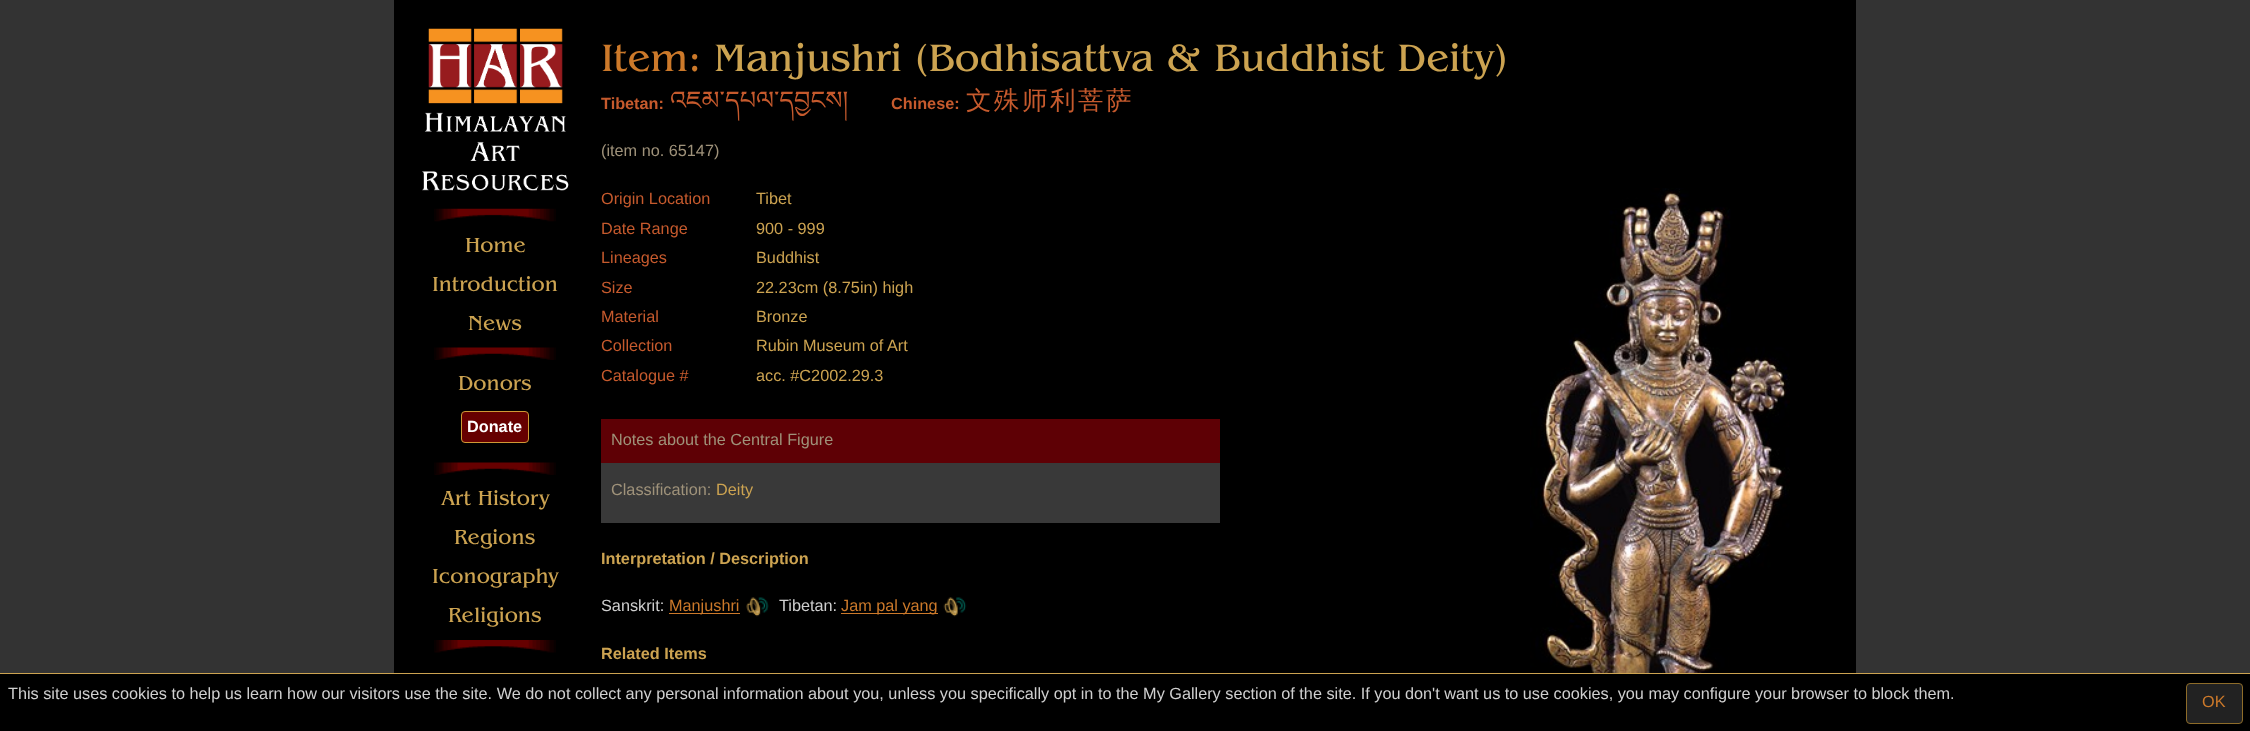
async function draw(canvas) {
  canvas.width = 2250
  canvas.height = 731
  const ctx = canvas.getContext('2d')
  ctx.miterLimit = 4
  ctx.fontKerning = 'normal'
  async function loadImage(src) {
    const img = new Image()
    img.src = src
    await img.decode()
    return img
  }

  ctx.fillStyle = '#333'
  ctx.fillRect(0, 0, 2250, 731)
  ctx.fillStyle = '#000'
  ctx.fillRect(394, 0, 1462, 673)
  ctx.drawImage(await loadImage('image0.png'), 422, 28, 147, 163)
  ctx.drawImage(await loadImage('image1.png'), 434, 208, 122, 14)
  ctx.font = '21.25px "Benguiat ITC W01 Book"'
  ctx.fillStyle = '#cca351'
  ctx.fillText('Home', 465, 252)
  ctx.fillText('Introduction', 432, 291)
  ctx.fillText('News', 468, 330)
  ctx.drawImage(await loadImage('image2.png'), 434, 347, 122, 13)
  ctx.fillText('Donors', 458, 390)
  ctx.fillStyle = '#600'
  ctx.beginPath()
  ctx.roundRect(461.5, 411.5, 67, 31, 3.5)
  ctx.fill()
  ctx.strokeStyle = '#cf9935'
  ctx.stroke()
  ctx.font = 'bold 16.25px Liberation Sans'
  ctx.fillStyle = '#fff'
  ctx.fillText('Donate', 467, 432)
  ctx.drawImage(await loadImage('image2.png'), 434, 462, 122, 13)
  ctx.font = '21.25px "Benguiat ITC W01 Book"'
  ctx.fillStyle = '#cca351'
  ctx.fillText('Art History', 441, 505)
  ctx.fillText('Regions', 454, 544)
  ctx.fillText('Iconography', 432, 583)
  ctx.fillText('Religions', 448, 622)
  ctx.drawImage(await loadImage('image3.png'), 434, 640, 122, 13)
  ctx.font = '40px "Benguiat ITC W01 Book"'
  ctx.fillStyle = '#cc792a'
  ctx.fillText('Item:', 601, 71)
  ctx.fillStyle = '#cca351'
  ctx.fillText('Manjushri (Bodhisattva & Buddhist Deity)', 714, 71)
  ctx.font = 'bold 16.25px Liberation Sans'
  ctx.fillStyle = '#c65a2d'
  ctx.fillText('Tibetan:', 601, 109)
  ctx.font = '25.5px Noto Serif Tibetan'
  ctx.fillText('འཇམ་དཔལ་དབྱངས།', 670, 109)
  ctx.font = 'bold 16.25px Liberation Sans'
  ctx.fillText('Chinese:', 891, 109)
  ctx.letterSpacing = '2.5px'
  ctx.font = '500 25.5px WenQuanYi Zen Hei'
  ctx.fillText('文殊师利菩萨', 966, 109)
  ctx.letterSpacing = '0px'
  ctx.font = '16.25px Liberation Sans'
  ctx.fillStyle = '#9f927a'
  ctx.fillText('(item no. 65147)', 601, 156)
  ctx.fillStyle = '#c65a2d'
  ctx.fillText('Origin Location', 601, 204)
  ctx.fillStyle = '#cca351'
  ctx.fillText('Tibet', 756, 204)
  ctx.fillStyle = '#c65a2d'
  ctx.fillText('Date Range', 601, 234)
  ctx.fillStyle = '#cca351'
  ctx.fillText('900 - 999', 756, 234)
  ctx.fillStyle = '#c65a2d'
  ctx.fillText('Lineages', 601, 263)
  ctx.fillStyle = '#cca351'
  ctx.fillText('Buddhist', 756, 263)
  ctx.fillStyle = '#c65a2d'
  ctx.fillText('Size', 601, 293)
  ctx.fillStyle = '#cca351'
  ctx.fillText('22.23cm (8.75in) high', 756, 293)
  ctx.fillStyle = '#c65a2d'
  ctx.fillText('Material', 601, 322)
  ctx.fillStyle = '#cca351'
  ctx.fillText('Bronze', 756, 322)
  ctx.fillStyle = '#c65a2d'
  ctx.fillText('Collection', 601, 351)
  ctx.fillStyle = '#cca351'
  ctx.fillText('Rubin Museum of Art', 756, 351)
  ctx.fillStyle = '#c65a2d'
  ctx.fillText('Catalogue #', 601, 381)
  ctx.fillStyle = '#cca351'
  ctx.fillText('acc. #C2002.29.3', 756, 381)
  ctx.fillStyle = '#393939'
  ctx.fillRect(601, 463, 619, 60)
  ctx.fillStyle = '#5e0005'
  ctx.fillRect(601, 419, 619, 44)
  ctx.fillStyle = '#9f927a'
  ctx.fillText('Notes about the Central Figure', 611, 445)
  ctx.fillText('Classification:', 611, 495)
  ctx.fillStyle = '#cca351'
  ctx.fillText('Deity', 716, 495)
  ctx.drawImage(await loadImage('image4.png'), 1530, 188, 260, 485)
  ctx.font = 'bold 16.25px Liberation Sans'
  ctx.fillText('Interpretation / Description', 601, 564)
  ctx.font = '16.25px Liberation Sans'
  ctx.fillStyle = '#cfcfcf'
  ctx.fillText('Sanskrit:', 601, 611)
  ctx.fillStyle = '#cc792a'
  ctx.fillRect(669, 613, 71, 1)
  ctx.fillText('Manjushri', 669, 611)
  ctx.drawImage(await loadImage('image5.png'), 746, 597, 23, 20)
  ctx.fillStyle = '#cfcfcf'
  ctx.fillText('Tibetan:', 779, 611)
  ctx.fillStyle = '#cc792a'
  ctx.fillRect(841, 613, 97, 1)
  ctx.fillText('Jam pal yang', 841, 611)
  ctx.drawImage(await loadImage('image6.png'), 943, 597, 24, 20)
  ctx.font = 'bold 16.25px Liberation Sans'
  ctx.fillStyle = '#cca351'
  ctx.fillText('Related Items', 601, 659)
  ctx.fillStyle = '#000'
  ctx.fillRect(0, 674, 2250, 57)
  ctx.fillStyle = '#cca351'
  ctx.fillRect(0, 673, 2250, 1)
  ctx.font = '16.25px Liberation Sans'
  ctx.fillStyle = '#cfcfcf'
  ctx.fillText('This site uses cookies to help us learn how our visitors use the site. We do not collect any personal information about you, unless you specifically opt in to the My Gallery section of the site. If you don\'t want us to use cookies, you may configure your browser to block them.', 8, 699)
  ctx.fillStyle = '#222'
  ctx.beginPath()
  ctx.roundRect(2186.5, 683.5, 56, 40, 3.5)
  ctx.fill()
  ctx.strokeStyle = '#8e6c29'
  ctx.stroke()
  ctx.fillStyle = '#cc792a'
  ctx.fillText('OK', 2202, 707)
}

draw(document.querySelector('canvas'))
